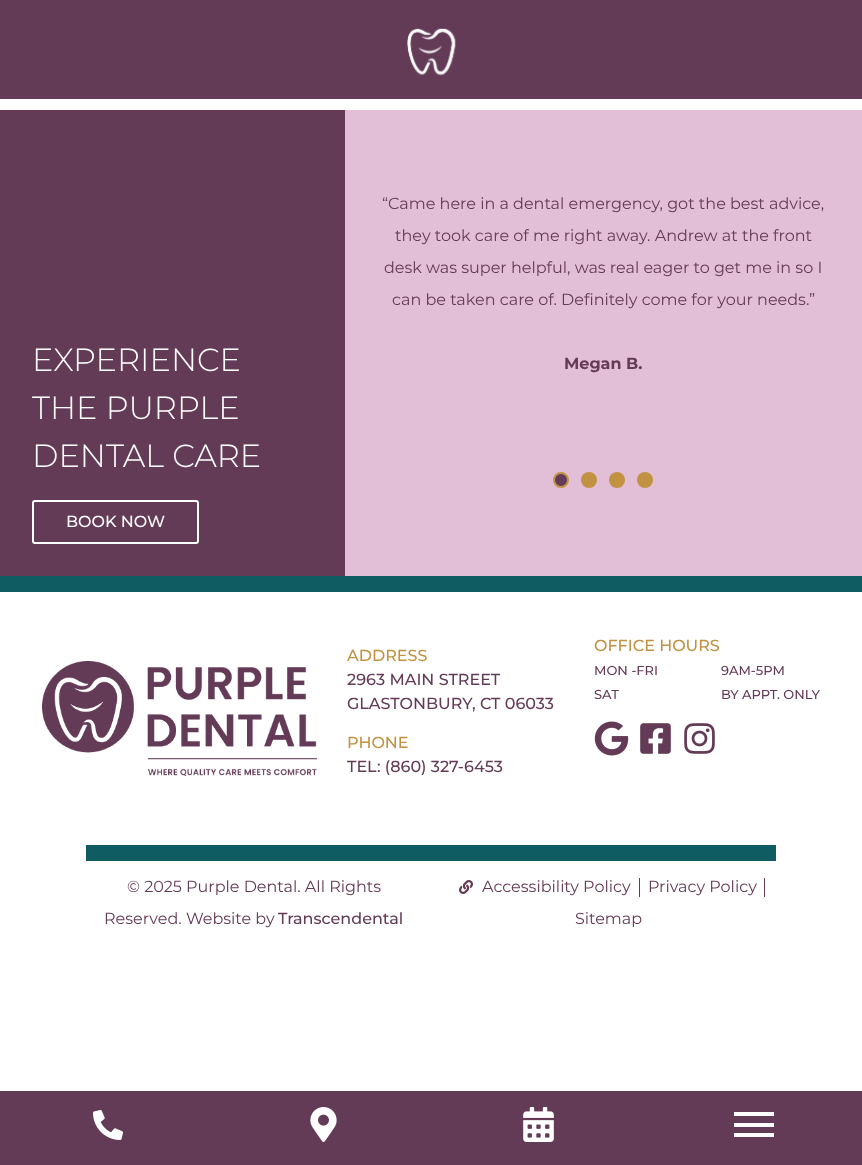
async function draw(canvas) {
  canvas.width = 862
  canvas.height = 1165
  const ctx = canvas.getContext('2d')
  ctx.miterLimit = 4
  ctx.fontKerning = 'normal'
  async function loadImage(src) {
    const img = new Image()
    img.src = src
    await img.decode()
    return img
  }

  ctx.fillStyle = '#fff'
  ctx.fillRect(0, 0, 862, 1165)
  ctx.fillStyle = '#643b56'
  ctx.fillRect(0, 0, 862, 99)
  ctx.drawImage(await loadImage('image0.png'), 407, 28, 49, 48)
  ctx.fillRect(0, 1091, 862, 74)
  ctx.drawImage(await loadImage('image1.png'), 93, 1110, 30, 30)
  ctx.drawImage(await loadImage('image2.png'), 310, 1107, 27, 35)
  ctx.drawImage(await loadImage('image3.png'), 523, 1107, 31, 35)
  ctx.fillStyle = '#fff'
  ctx.fillRect(734, 1112, 40, 4)
  ctx.fillRect(734, 1123, 40, 4)
  ctx.fillRect(734, 1133, 40, 4)
  ctx.fillStyle = '#643b56'
  ctx.fillRect(0, 110, 345, 466)
  ctx.fillStyle = '#105c63'
  ctx.fillRect(0, 576, 862, 16)
  ctx.fillStyle = '#e2bfd7'
  ctx.fillRect(345, 110, 517, 466)
  ctx.font = '16px Montserrat'
  ctx.fillStyle = '#643b56'
  ctx.fillText('“Came here in a dental emergency, got the best advice,', 382, 209)
  ctx.fillText('they took care of me right away. Andrew at the front', 395, 241)
  ctx.fillText('desk was super helpful, was real eager to get me in so I', 384, 273)
  ctx.fillText('can be taken care of. Definitely come for your needs.”', 392, 305)
  ctx.font = 'bold 16px Montserrat'
  ctx.fillText('Megan B.', 564, 369)
  ctx.beginPath()
  ctx.arc(561, 480, 7, 0, 2 * Math.PI)
  ctx.fill()
  ctx.strokeStyle = '#c29243'
  ctx.lineWidth = 2
  ctx.stroke()
  ctx.fillStyle = '#c29243'
  ctx.beginPath()
  ctx.arc(589, 480, 8, 0, 2 * Math.PI)
  ctx.fill()
  ctx.beginPath()
  ctx.arc(617, 480, 8, 0, 2 * Math.PI)
  ctx.fill()
  ctx.beginPath()
  ctx.arc(645, 480, 8, 0, 2 * Math.PI)
  ctx.fill()
  ctx.font = '300 32px Montserrat'
  ctx.fillStyle = '#fff'
  ctx.fillText('EXPERIENCE', 32, 371)
  ctx.fillText('THE PURPLE', 32, 419)
  ctx.fillText('DENTAL CARE', 32, 467)
  ctx.beginPath()
  ctx.roundRect(33, 501, 165, 42, 2)
  ctx.strokeStyle = '#fff'
  ctx.stroke()
  ctx.font = '500 16px Montserrat'
  ctx.fillText('BOOK NOW', 66, 527)
  ctx.drawImage(await loadImage('image4.png'), 42, 661, 275, 115)
  ctx.fillStyle = '#c29243'
  ctx.fillText('ADDRESS', 347, 661)
  ctx.fillStyle = '#643b56'
  ctx.fillText('2963 MAIN STREET', 347, 685)
  ctx.fillText('GLASTONBURY, CT 06033', 347, 709)
  ctx.fillStyle = '#c29243'
  ctx.fillText('PHONE', 347, 748)
  ctx.fillStyle = '#643b56'
  ctx.fillText('TEL: (860) 327-6453', 347, 772)
  ctx.fillStyle = '#c29243'
  ctx.fillText('OFFICE HOURS', 594, 651)
  ctx.font = '500 13px Montserrat'
  ctx.fillStyle = '#643b56'
  ctx.fillText('MON -FRI', 594, 675)
  ctx.fillText('SAT', 594, 699)
  ctx.fillText('9AM-5PM', 721, 675)
  ctx.fillText('BY APPT. ONLY', 721, 699)
  ctx.drawImage(await loadImage('image5.png'), 594, 721, 35, 35)
  ctx.drawImage(await loadImage('image6.png'), 640, 723, 31, 31)
  ctx.drawImage(await loadImage('image7.png'), 684, 723, 31, 31)
  ctx.fillStyle = '#105c63'
  ctx.fillRect(86, 845, 690, 16)
  ctx.font = '16px Montserrat'
  ctx.fillStyle = '#643b56'
  ctx.fillText('© 2025 Purple Dental. All Rights', 127, 892)
  ctx.fillText('Reserved. Website by', 104, 924)
  ctx.font = '500 16px Montserrat'
  ctx.fillText('Transcendental', 278, 924)
  ctx.drawImage(await loadImage('image8.png'), 459, 880, 14, 14)
  ctx.font = '16px Montserrat'
  ctx.fillText('Accessibility Policy', 482, 892)
  ctx.fillRect(639, 878, 1, 19)
  ctx.fillText('Privacy Policy', 648, 892)
  ctx.fillRect(764, 878, 1, 19)
  ctx.fillText('Sitemap', 575, 924)
}

draw(document.querySelector('canvas'))
